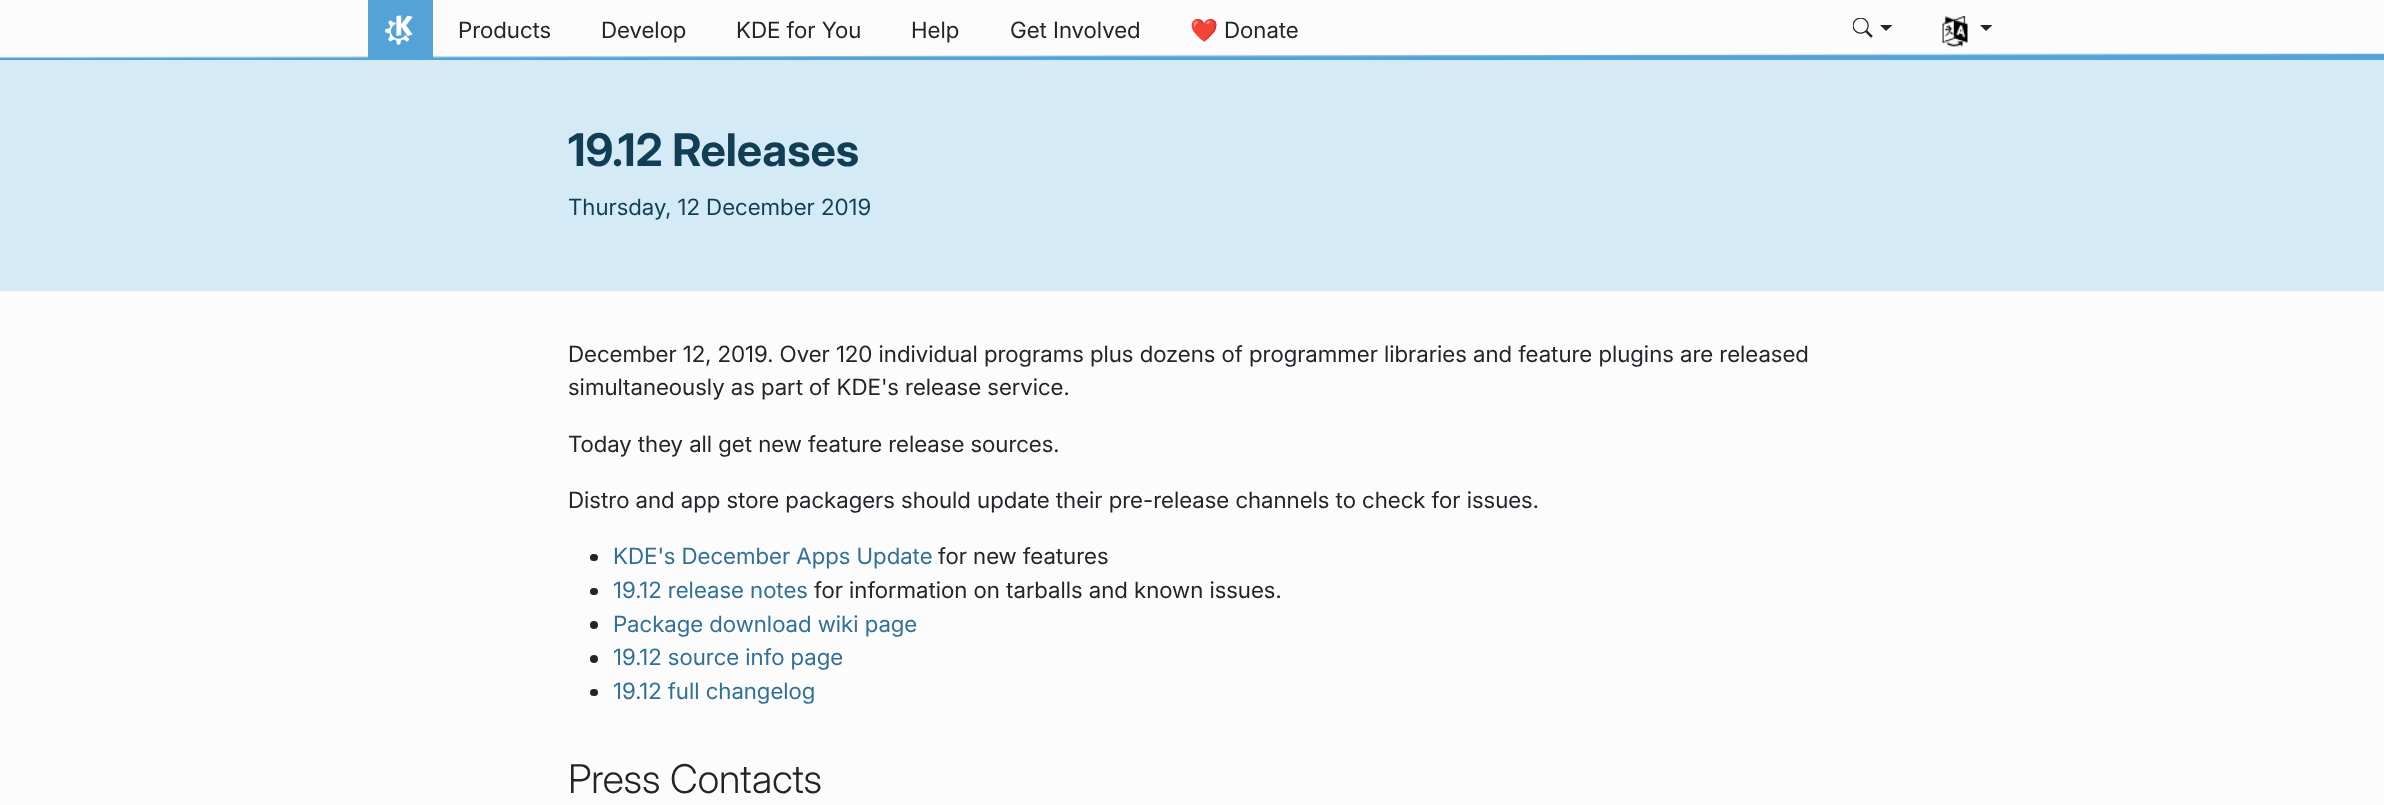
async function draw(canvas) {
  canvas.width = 2384
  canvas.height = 805
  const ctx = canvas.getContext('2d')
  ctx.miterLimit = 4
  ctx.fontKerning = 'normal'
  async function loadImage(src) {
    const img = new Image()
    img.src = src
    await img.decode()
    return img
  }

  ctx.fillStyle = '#fcfcfc'
  ctx.fillRect(0, 0, 2384, 805)
  ctx.fillStyle = '#54a3d8'
  ctx.fillRect(368, 0, 65, 58)
  ctx.drawImage(await loadImage('image0.png'), 385, 15, 28, 30)
  ctx.font = '22.5px Inter'
  ctx.fillStyle = '#212529'
  ctx.fillText('Products', 458, 38)
  ctx.fillText('Develop', 601, 38)
  ctx.fillText('KDE for You', 736, 38)
  ctx.fillText('Help', 911, 38)
  ctx.fillText('Get Involved', 1010, 38)
  ctx.font = '22.5px Noto Color Emoji'
  ctx.fillText('❤️', 1190, 38)
  ctx.font = '22.5px Inter'
  ctx.fillText('Donate', 1224, 38)
  ctx.drawImage(await loadImage('image1.png'), 1853, 18, 20, 20)
  ctx.beginPath()
  ctx.moveTo(1880, 25)
  ctx.lineTo(1892.5, 25)
  ctx.lineTo(1886, 31)
  ctx.closePath()
  ctx.fill()
  ctx.drawImage(await loadImage('image2.png'), 1942, 16, 26, 31)
  ctx.beginPath()
  ctx.moveTo(1980, 25)
  ctx.lineTo(1992.5, 25)
  ctx.lineTo(1986, 31)
  ctx.closePath()
  ctx.fill()
  ctx.drawImage(await loadImage('image3.png'), 0, 53, 2384, 7)
  ctx.fillStyle = '#d4ebf7'
  ctx.fillRect(0, 60, 2384, 231)
  ctx.font = 'bold 45px Inter'
  ctx.fillStyle = '#113e55'
  ctx.fillText('19.12 Releases', 568, 166)
  ctx.font = '22.5px Inter'
  ctx.fillText('Thursday, 12 December 2019', 568, 215)
  ctx.fillStyle = '#212529'
  ctx.fillText('December 12, 2019. Over 120 individual programs plus dozens of programmer libraries and feature plugins are released', 568, 362)
  ctx.fillText('simultaneously as part of KDE\'s release service.', 568, 395)
  ctx.fillText('Today they all get new feature release sources.', 568, 452)
  ctx.fillText('Distro and app store packagers should update their pre-release channels to check for issues.', 568, 508)
  ctx.beginPath()
  ctx.roundRect(590, 554, 8, 7, 3.5)
  ctx.fill()
  ctx.fillStyle = '#316f98'
  ctx.fillText('KDE\'s December Apps Update', 613, 564)
  ctx.fillStyle = '#212529'
  ctx.fillText('for new features', 938, 564)
  ctx.beginPath()
  ctx.roundRect(590, 588, 8, 7, 3.5)
  ctx.fill()
  ctx.fillStyle = '#316f98'
  ctx.fillText('19.12 release notes', 613, 598)
  ctx.fillStyle = '#212529'
  ctx.fillText('for information on tarballs and known issues.', 814, 598)
  ctx.beginPath()
  ctx.arc(594, 625, 4, 0, 2 * Math.PI)
  ctx.fill()
  ctx.fillStyle = '#316f98'
  ctx.fillText('Package download wiki page', 613, 632)
  ctx.fillStyle = '#212529'
  ctx.beginPath()
  ctx.arc(594, 659, 4, 0, 2 * Math.PI)
  ctx.fill()
  ctx.fillStyle = '#316f98'
  ctx.fillText('19.12 source info page', 613, 665)
  ctx.fillStyle = '#212529'
  ctx.beginPath()
  ctx.roundRect(590, 689, 8, 7, 3.5)
  ctx.fill()
  ctx.fillStyle = '#316f98'
  ctx.fillText('19.12 full changelog', 613, 699)
  ctx.font = '300 39.5px Inter'
  ctx.fillStyle = '#212529'
  ctx.fillText('Press Contacts', 568, 793)
}

draw(document.querySelector('canvas'))
